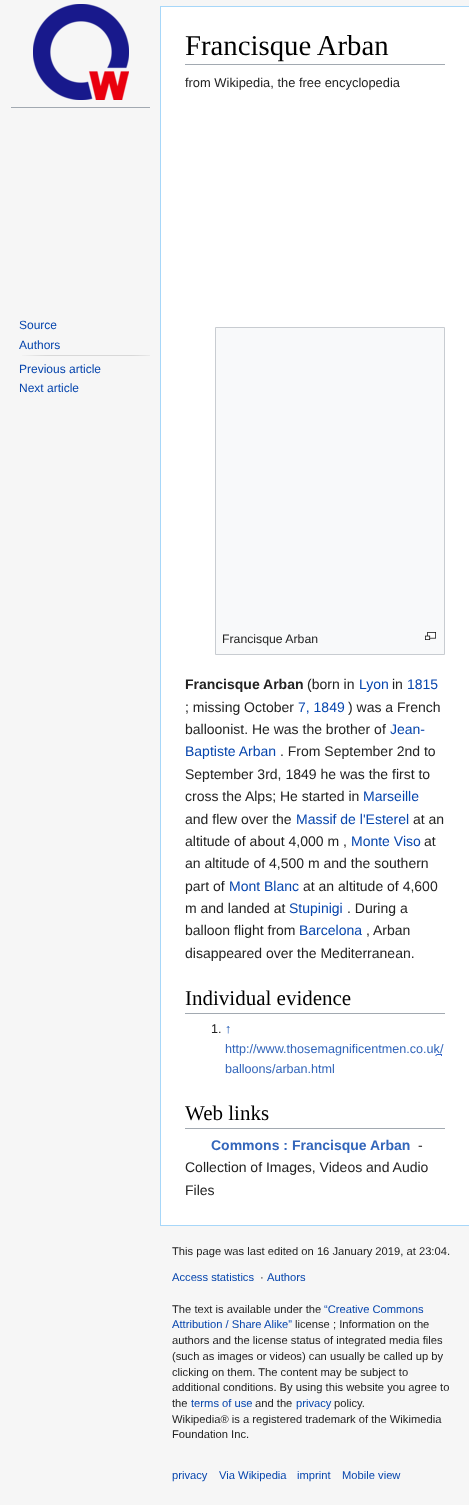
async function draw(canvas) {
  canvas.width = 469
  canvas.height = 1505
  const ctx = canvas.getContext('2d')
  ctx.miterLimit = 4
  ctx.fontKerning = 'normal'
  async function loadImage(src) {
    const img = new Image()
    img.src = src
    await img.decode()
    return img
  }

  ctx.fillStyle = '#f6f6f6'
  ctx.fillRect(0, 0, 469, 1505)
  ctx.drawImage(await loadImage('image0.png'), 33, 4, 96, 96)
  ctx.fillStyle = '#a2a9b1'
  ctx.fillRect(11, 107, 139, 1)
  ctx.font = '12px Liberation Sans'
  ctx.fillStyle = '#0645ad'
  ctx.fillText('Source', 19, 329)
  ctx.fillText('Authors', 19, 349)
  ctx.drawImage(await loadImage('image1.png'), 22, 355, 128, 1)
  ctx.fillText('Previous article', 19, 373)
  ctx.fillText('Next article', 19, 392)
  ctx.fillStyle = '#fff'
  ctx.fillRect(161, 7, 308, 1218)
  ctx.fillStyle = '#a7d7f9'
  ctx.fillRect(160, 6, 309, 1)
  ctx.fillRect(160, 1225, 309, 1)
  ctx.fillRect(160, 6, 1, 1220)
  ctx.fillStyle = '#a2a9b1'
  ctx.fillRect(185, 64, 260, 1)
  ctx.font = '28.75px Liberation Serif'
  ctx.fillStyle = '#000'
  ctx.fillText('Francisque Arban', 185, 55)
  ctx.font = '12.9px Liberation Sans'
  ctx.fillStyle = '#222'
  ctx.fillText('from Wikipedia, the free encyclopedia', 185, 87)
  ctx.fillStyle = '#f8f9fa'
  ctx.beginPath()
  ctx.rect(215.5, 327.5, 229, 327)
  ctx.fill()
  ctx.strokeStyle = '#c8ccd1'
  ctx.stroke()
  ctx.font = '12.25px Liberation Sans'
  ctx.fillStyle = '#222'
  ctx.fillText('Francisque Arban', 222, 643)
  ctx.drawImage(await loadImage('image2.png'), 425, 632, 11, 8)
  ctx.font = 'bold 14px Liberation Sans'
  ctx.fillText('Francisque Arban', 185, 689)
  ctx.font = '14px Liberation Sans'
  ctx.fillText('(born in', 307, 689)
  ctx.fillStyle = '#0645ad'
  ctx.fillText('Lyon', 359, 689)
  ctx.fillStyle = '#222'
  ctx.fillText('in', 392, 689)
  ctx.fillStyle = '#0645ad'
  ctx.fillText('1815', 407, 689)
  ctx.fillStyle = '#222'
  ctx.fillText('; missing October', 185, 712)
  ctx.fillStyle = '#0645ad'
  ctx.fillText('7, 1849', 298, 712)
  ctx.fillStyle = '#222'
  ctx.fillText(') was a French', 348, 712)
  ctx.fillText('balloonist. He was the brother of', 185, 734)
  ctx.fillStyle = '#0645ad'
  ctx.fillText('Jean-', 390, 734)
  ctx.fillText('Baptiste Arban', 185, 756)
  ctx.fillStyle = '#222'
  ctx.fillText('. From September 2nd to', 280, 756)
  ctx.fillText('September 3rd, 1849 he was the first to', 185, 779)
  ctx.fillText('cross the Alps; He started in', 185, 801)
  ctx.fillStyle = '#0645ad'
  ctx.fillText('Marseille', 363, 801)
  ctx.fillStyle = '#222'
  ctx.fillText('and flew over the', 185, 824)
  ctx.fillStyle = '#0645ad'
  ctx.fillText('Massif de l\'Esterel', 296, 824)
  ctx.fillStyle = '#222'
  ctx.fillText('at an', 413, 824)
  ctx.fillText('altitude of about 4,000 m ,', 185, 846)
  ctx.fillStyle = '#0645ad'
  ctx.fillText('Monte Viso', 351, 846)
  ctx.fillStyle = '#222'
  ctx.fillText('at', 424, 846)
  ctx.fillText('an altitude of 4,500 m and the southern', 185, 868)
  ctx.fillText('part of', 185, 891)
  ctx.fillStyle = '#0645ad'
  ctx.fillText('Mont Blanc', 229, 891)
  ctx.fillStyle = '#222'
  ctx.fillText('at an altitude of 4,600', 303, 891)
  ctx.fillText('m and landed at', 185, 913)
  ctx.fillStyle = '#0645ad'
  ctx.fillText('Stupinigi', 289, 913)
  ctx.fillStyle = '#222'
  ctx.fillText('. During a', 347, 913)
  ctx.fillText('balloon flight from', 185, 935)
  ctx.fillStyle = '#0645ad'
  ctx.fillText('Barcelona', 299, 935)
  ctx.fillStyle = '#222'
  ctx.fillText(', Arban', 366, 935)
  ctx.fillText('disappeared over the Mediterranean.', 185, 958)
  ctx.fillStyle = '#a2a9b1'
  ctx.fillRect(185, 1013, 260, 1)
  ctx.font = '21px Liberation Serif'
  ctx.fillStyle = '#000'
  ctx.fillText('Individual evidence', 185, 1005)
  ctx.font = '12.6px Liberation Sans'
  ctx.fillStyle = '#222'
  ctx.fillText('1.', 211, 1033)
  ctx.font = 'italic 12.6px Liberation Sans'
  ctx.fillStyle = '#0645ad'
  ctx.fillText('↑', 225, 1033)
  ctx.drawImage(await loadImage('image3.png'), 435, 1054, 7, 2)
  ctx.font = '12.6px Liberation Sans'
  ctx.fillStyle = '#36b'
  ctx.fillText('http://www.thosemagnificentmen.co.uk/', 225, 1053)
  ctx.fillText('balloons/arban.html', 225, 1073)
  ctx.fillStyle = '#a2a9b1'
  ctx.fillRect(185, 1128, 260, 1)
  ctx.font = '21px Liberation Serif'
  ctx.fillStyle = '#000'
  ctx.fillText('Web links', 185, 1120)
  ctx.font = 'bold 14px Liberation Sans'
  ctx.fillStyle = '#36b'
  ctx.fillText('Commons : Francisque Arban', 211, 1150)
  ctx.font = '14px Liberation Sans'
  ctx.fillStyle = '#222'
  ctx.fillText('-', 418, 1150)
  ctx.fillText('Collection of Images, Videos and Audio', 185, 1172)
  ctx.fillText('Files', 185, 1195)
  ctx.font = '11.2px Liberation Sans'
  ctx.fillText('This page was last edited on 16 January 2019, at 23:04.', 172, 1255)
  ctx.fillStyle = '#0645ad'
  ctx.fillText('Access statistics', 172, 1281)
  ctx.fillStyle = '#222'
  ctx.fillText('·', 260, 1281)
  ctx.fillStyle = '#0645ad'
  ctx.fillText('Authors', 267, 1281)
  ctx.fillStyle = '#222'
  ctx.fillText('The text is available under the', 172, 1313)
  ctx.fillStyle = '#0645ad'
  ctx.fillText('“Creative Commons', 324, 1313)
  ctx.fillText('Attribution / Share Alike”', 172, 1328)
  ctx.fillStyle = '#222'
  ctx.fillText('license ; Information on the', 295, 1328)
  ctx.fillText('authors and the license status of integrated media files', 172, 1344)
  ctx.fillText('(such as images or videos) can usually be called up by', 172, 1360)
  ctx.fillText('clicking on them. The content may be subject to', 172, 1376)
  ctx.fillText('additional conditions. By using this website you agree to', 172, 1391)
  ctx.fillText('the', 172, 1407)
  ctx.fillStyle = '#0645ad'
  ctx.fillText('terms of use', 191, 1407)
  ctx.fillStyle = '#222'
  ctx.fillText('and the', 255, 1407)
  ctx.fillStyle = '#0645ad'
  ctx.fillText('privacy', 296, 1407)
  ctx.fillStyle = '#222'
  ctx.fillText('policy.', 334, 1407)
  ctx.fillText('Wikipedia® is a registered trademark of the Wikimedia', 172, 1423)
  ctx.fillText('Foundation Inc.', 172, 1438)
  ctx.fillStyle = '#0645ad'
  ctx.fillText('privacy', 172, 1479)
  ctx.fillText('Via Wikipedia', 219, 1479)
  ctx.fillText('imprint', 297, 1479)
  ctx.fillText('Mobile view', 342, 1479)
}

draw(document.querySelector('canvas'))
